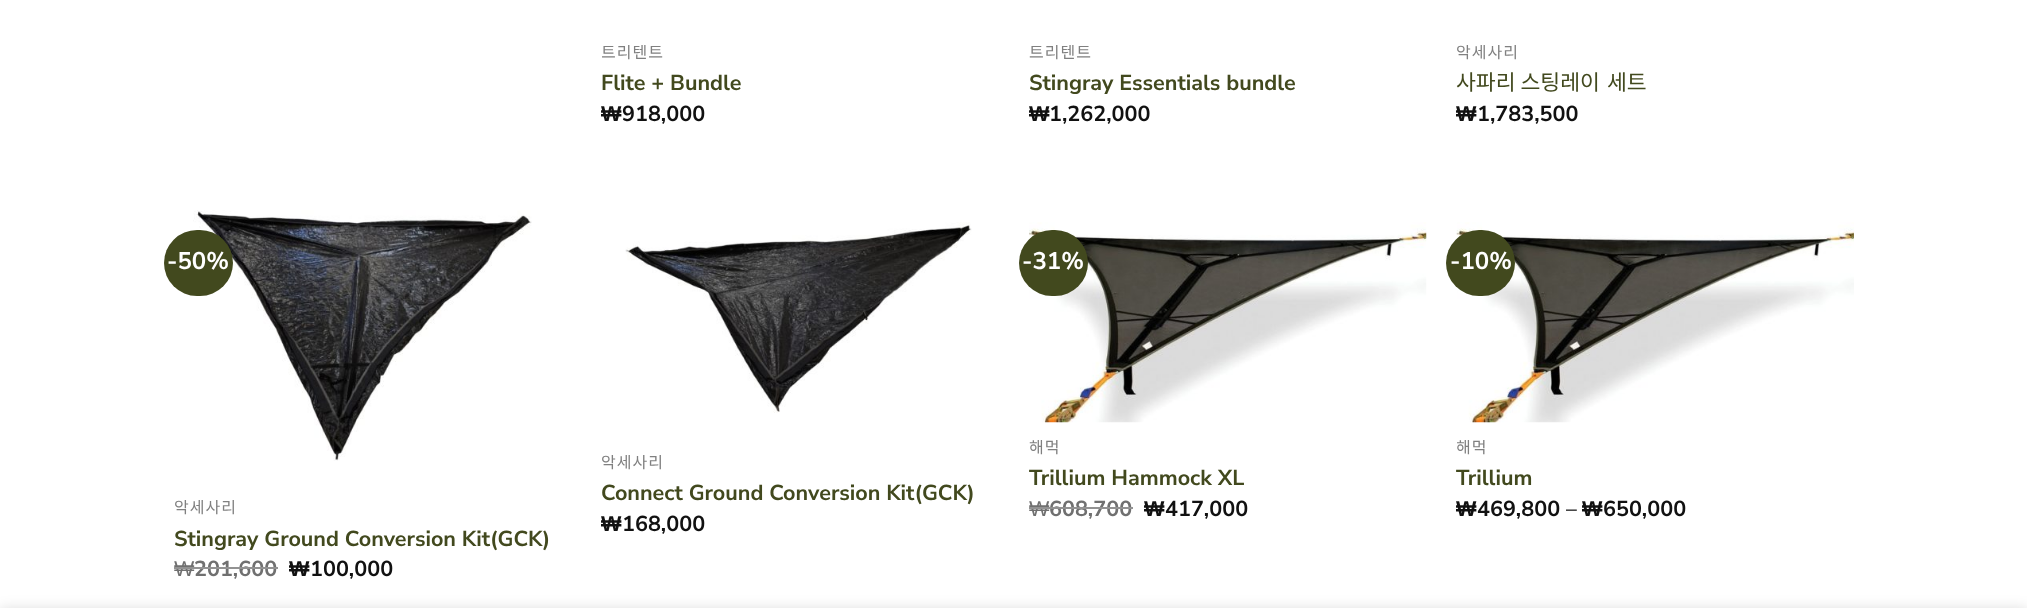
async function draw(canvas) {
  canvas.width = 2027
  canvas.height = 608
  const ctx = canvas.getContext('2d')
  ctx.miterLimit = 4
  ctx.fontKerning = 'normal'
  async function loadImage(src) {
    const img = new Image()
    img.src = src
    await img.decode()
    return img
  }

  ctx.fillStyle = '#fff'
  ctx.fillRect(0, 0, 2027, 608)
  ctx.save()
  ctx.beginPath()
  ctx.rect(602, 45, 397, 20)
  ctx.clip()
  ctx.letterSpacing = '1px'
  ctx.font = '16px Noto Sans CJK SC'
  ctx.fillStyle = '#808080'
  ctx.fillText('트리텐트', 601, 58)
  ctx.restore()
  ctx.font = 'bold 21.6px Nunito Sans'
  ctx.fillStyle = '#42491e'
  ctx.fillText('Flite + Bundle', 601, 90)
  ctx.font = 'bold 21.6px Liberation Sans'
  ctx.fillStyle = '#111'
  ctx.fillText('₩', 601, 121)
  ctx.font = 'bold 21.6px Nunito Sans'
  ctx.fillText('918,000', 622, 121)
  ctx.save()
  ctx.beginPath()
  ctx.rect(1029, 45, 398, 20)
  ctx.clip()
  ctx.letterSpacing = '1px'
  ctx.font = '16px Noto Sans CJK SC'
  ctx.fillStyle = '#808080'
  ctx.fillText('트리텐트', 1029, 58)
  ctx.restore()
  ctx.fillStyle = '#42491e'
  ctx.fillText('Stingray Essentials bundle', 1029, 90)
  ctx.font = 'bold 21.6px Liberation Sans'
  ctx.fillStyle = '#111'
  ctx.fillText('₩', 1029, 121)
  ctx.font = 'bold 21.6px Nunito Sans'
  ctx.fillText('1,262,000', 1049, 121)
  ctx.save()
  ctx.beginPath()
  ctx.rect(1457, 45, 397, 20)
  ctx.clip()
  ctx.letterSpacing = '1px'
  ctx.font = '16px Noto Sans CJK SC'
  ctx.fillStyle = '#808080'
  ctx.fillText('악세사리', 1456, 58)
  ctx.restore()
  ctx.font = '21.6px Noto Sans CJK SC'
  ctx.fillStyle = '#42491e'
  ctx.fillText('사파리 스팅레이', 1456, 90)
  ctx.fillText('세트', 1607, 90)
  ctx.font = 'bold 21.6px Liberation Sans'
  ctx.fillStyle = '#111'
  ctx.fillText('₩', 1456, 121)
  ctx.font = 'bold 21.6px Nunito Sans'
  ctx.fillText('1,783,500', 1477, 121)
  ctx.drawImage(await loadImage('image0.png'), 193, 210, 339, 251)
  ctx.fillStyle = '#42491e'
  ctx.beginPath()
  ctx.roundRect(164, 230, 69, 66, 33)
  ctx.fill()
  ctx.font = 'bold 24px Nunito Sans'
  ctx.fillStyle = '#fff'
  ctx.fillText('-50%', 167, 269)
  ctx.save()
  ctx.beginPath()
  ctx.rect(174, 500, 398, 19)
  ctx.clip()
  ctx.letterSpacing = '1px'
  ctx.font = '16px Noto Sans CJK SC'
  ctx.fillStyle = '#808080'
  ctx.fillText('악세사리', 174, 513)
  ctx.restore()
  ctx.font = 'bold 21.6px Nunito Sans'
  ctx.fillStyle = '#42491e'
  ctx.fillText('Stingray Ground Conversion Kit(GCK)', 174, 546)
  ctx.font = '21.6px Liberation Sans'
  ctx.fillStyle = '#707070'
  ctx.fillText('₩', 174, 576)
  ctx.fillStyle = '#929292'
  ctx.fillRect(174, 567, 20, 2)
  ctx.font = 'bold 21.6px Nunito Sans'
  ctx.fillStyle = '#707070'
  ctx.fillText('201,600', 194, 576)
  ctx.fillStyle = '#929292'
  ctx.fillRect(194, 567, 84, 2)
  ctx.font = 'bold 21.6px Liberation Sans'
  ctx.fillStyle = '#111'
  ctx.fillText('₩', 289, 576)
  ctx.font = 'bold 21.6px Nunito Sans'
  ctx.fillText('100,000', 310, 576)
  ctx.drawImage(await loadImage('image1.png'), 625, 222, 347, 191)
  ctx.save()
  ctx.beginPath()
  ctx.rect(602, 455, 397, 19)
  ctx.clip()
  ctx.letterSpacing = '1px'
  ctx.font = '16px Noto Sans CJK SC'
  ctx.fillStyle = '#808080'
  ctx.fillText('악세사리', 601, 468)
  ctx.restore()
  ctx.fillStyle = '#42491e'
  ctx.fillText('Connect Ground Conversion Kit(GCK)', 601, 500)
  ctx.font = 'bold 21.6px Liberation Sans'
  ctx.fillStyle = '#111'
  ctx.fillText('₩', 601, 531)
  ctx.font = 'bold 21.6px Nunito Sans'
  ctx.fillText('168,000', 622, 531)
  ctx.drawImage(await loadImage('image2.png'), 1029, 222, 398, 201)
  ctx.fillStyle = '#42491e'
  ctx.beginPath()
  ctx.roundRect(1019, 230, 69, 66, 33)
  ctx.fill()
  ctx.font = 'bold 24px Nunito Sans'
  ctx.fillStyle = '#fff'
  ctx.fillText('-31%', 1022, 269)
  ctx.save()
  ctx.beginPath()
  ctx.rect(1029, 440, 398, 19)
  ctx.clip()
  ctx.letterSpacing = '1px'
  ctx.font = '16px Noto Sans CJK SC'
  ctx.fillStyle = '#808080'
  ctx.fillText('해먹', 1029, 453)
  ctx.restore()
  ctx.font = 'bold 21.6px Nunito Sans'
  ctx.fillStyle = '#42491e'
  ctx.fillText('Trillium Hammock XL', 1029, 485)
  ctx.font = '21.6px Liberation Sans'
  ctx.fillStyle = '#707070'
  ctx.fillText('₩', 1029, 516)
  ctx.fillStyle = '#929292'
  ctx.fillRect(1029, 507, 20, 2)
  ctx.font = 'bold 21.6px Nunito Sans'
  ctx.fillStyle = '#707070'
  ctx.fillText('608,700', 1049, 516)
  ctx.fillStyle = '#929292'
  ctx.fillRect(1049, 507, 84, 2)
  ctx.font = 'bold 21.6px Liberation Sans'
  ctx.fillStyle = '#111'
  ctx.fillText('₩', 1144, 516)
  ctx.font = 'bold 21.6px Nunito Sans'
  ctx.fillText('417,000', 1165, 516)
  ctx.drawImage(await loadImage('image3.png'), 1456, 222, 398, 201)
  ctx.fillStyle = '#42491e'
  ctx.beginPath()
  ctx.roundRect(1446, 230, 69, 66, 33)
  ctx.fill()
  ctx.font = 'bold 24px Nunito Sans'
  ctx.fillStyle = '#fff'
  ctx.fillText('-10%', 1450, 269)
  ctx.save()
  ctx.beginPath()
  ctx.rect(1457, 440, 397, 19)
  ctx.clip()
  ctx.letterSpacing = '1px'
  ctx.font = '16px Noto Sans CJK SC'
  ctx.fillStyle = '#808080'
  ctx.fillText('해먹', 1456, 453)
  ctx.restore()
  ctx.font = 'bold 21.6px Nunito Sans'
  ctx.fillStyle = '#42491e'
  ctx.fillText('Trillium', 1456, 485)
  ctx.font = 'bold 21.6px Liberation Sans'
  ctx.fillStyle = '#111'
  ctx.fillText('₩', 1456, 516)
  ctx.font = 'bold 21.6px Nunito Sans'
  ctx.fillText('469,800', 1477, 516)
  ctx.fillStyle = '#494949'
  ctx.fillText('–', 1566, 516)
  ctx.font = 'bold 21.6px Liberation Sans'
  ctx.fillStyle = '#111'
  ctx.fillText('₩', 1582, 516)
  ctx.font = 'bold 21.6px Nunito Sans'
  ctx.fillText('650,000', 1603, 516)
  ctx.fillStyle = '#00000024'
  ctx.filter = 'blur(7px)'
  ctx.beginPath()
  ctx.rect(0, 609, 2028, 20)
  ctx.fill()
  ctx.filter = 'none'
}

draw(document.querySelector('canvas'))
